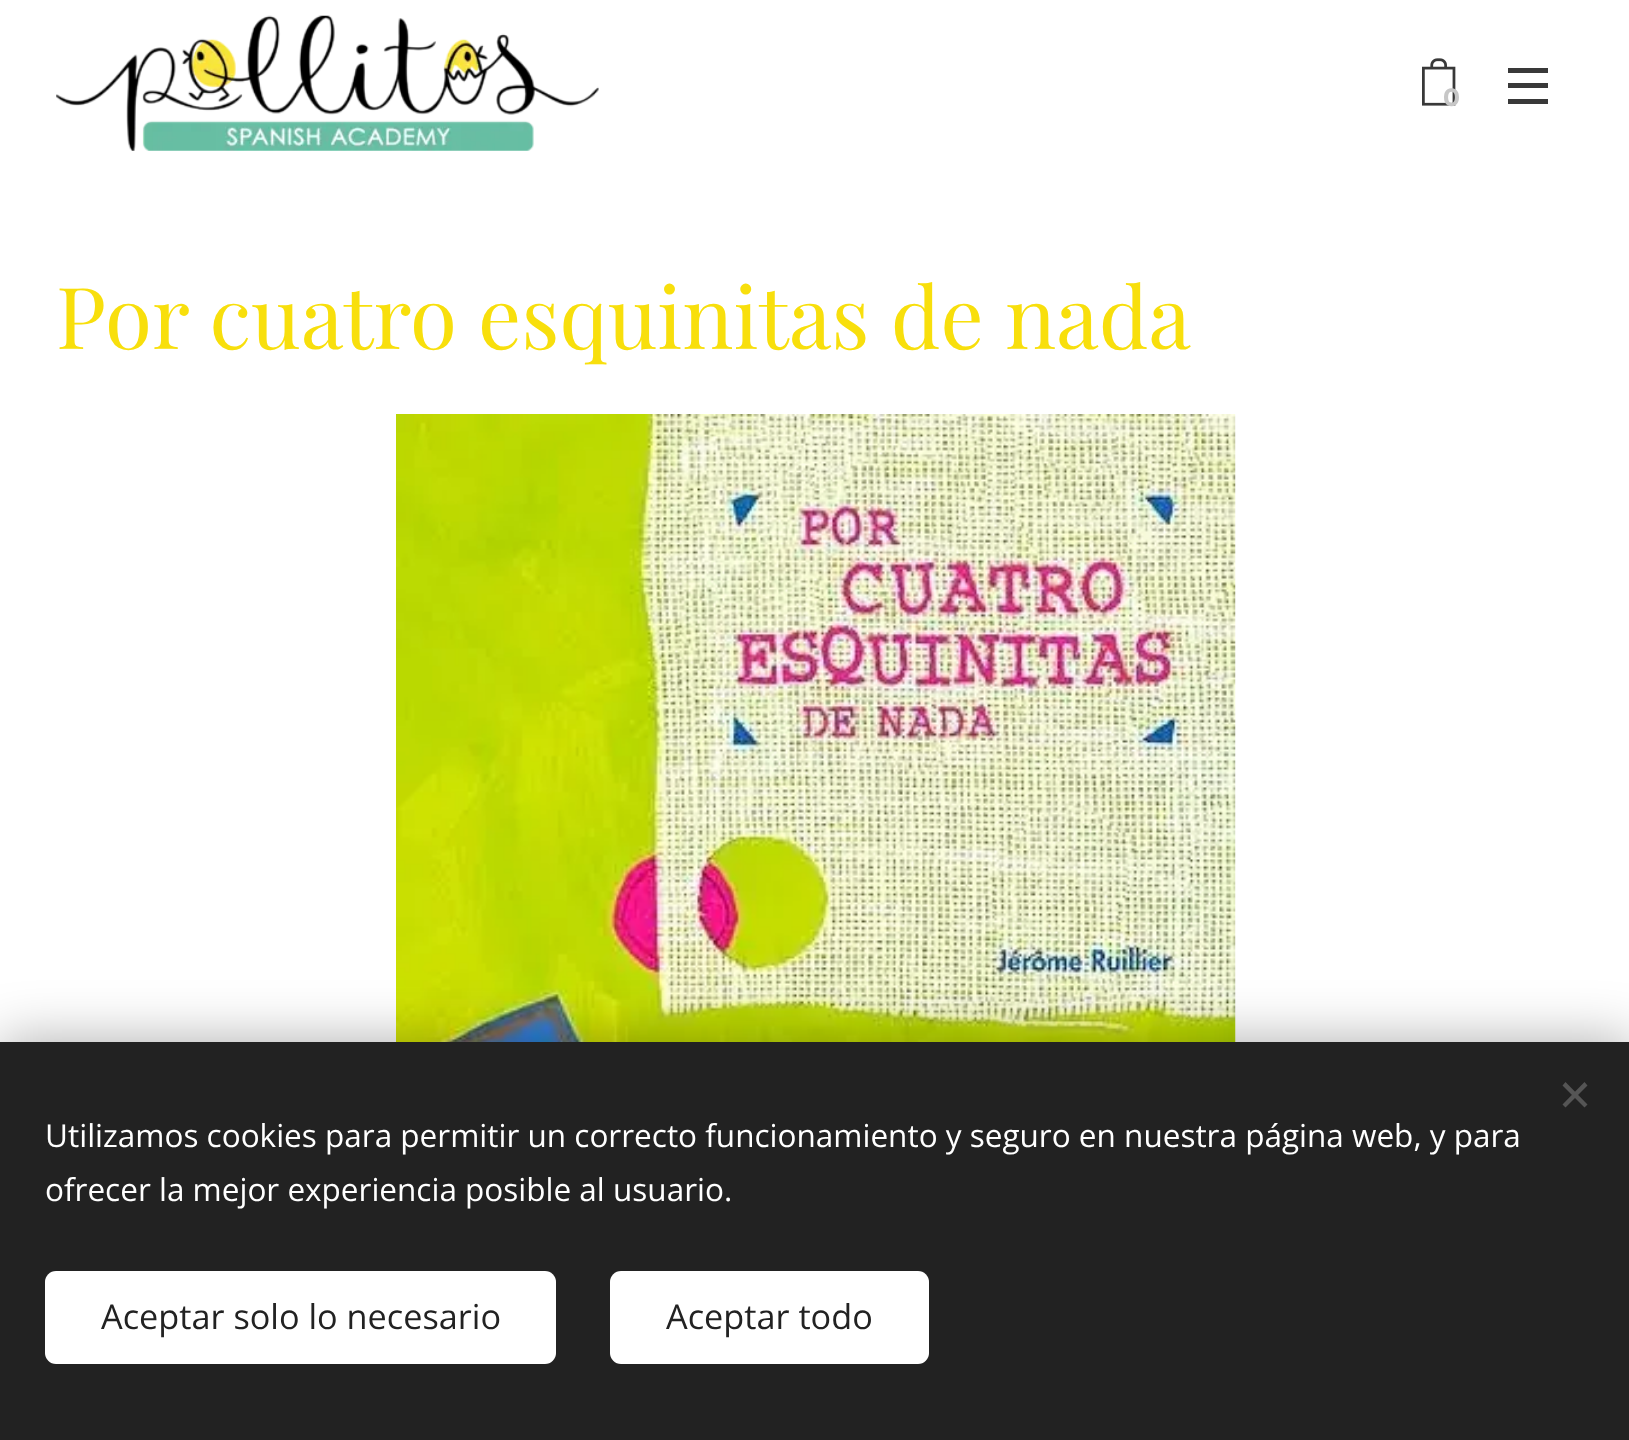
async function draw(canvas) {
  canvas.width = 1629
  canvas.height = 1440
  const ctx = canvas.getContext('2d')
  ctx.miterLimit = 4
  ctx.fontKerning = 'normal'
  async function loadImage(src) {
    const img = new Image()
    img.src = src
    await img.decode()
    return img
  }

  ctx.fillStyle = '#fff'
  ctx.fillRect(0, 0, 1629, 1440)
  ctx.drawImage(await loadImage('image0.png'), 56, 15, 543, 136)
  ctx.drawImage(await loadImage('image1.png'), 1422, 58, 34, 48)
  ctx.font = 'bold 25px Montserrat'
  ctx.fillStyle = '#c7c7c7'
  ctx.fillText('0', 1443, 106)
  ctx.fillStyle = '#393939'
  ctx.fillRect(1508, 83, 40, 5)
  ctx.fillRect(1508, 68, 40, 5)
  ctx.fillRect(1508, 99, 40, 5)
  ctx.font = '85.5px Playfair Display'
  ctx.fillStyle = '#f8df0c'
  ctx.fillText('Por cuatro esquinitas de nada', 56, 349)
  ctx.drawImage(await loadImage('image2.png'), 396, 414, 840, 628)
  ctx.fillStyle = '#00000054'
  ctx.filter = 'blur(28px)'
  ctx.beginPath()
  ctx.rect(0, 1042, 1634, 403)
  ctx.fill()
  ctx.filter = 'none'
  ctx.fillStyle = '#222'
  ctx.fillRect(0, 1042, 1629, 398)
  ctx.fillStyle = '#555'
  ctx.beginPath()
  ctx.moveTo(1562.5, 1104.5)
  ctx.lineTo(1584.5, 1082)
  ctx.lineTo(1587.5, 1085.5)
  ctx.lineTo(1565.5, 1107.5)
  ctx.closePath()
  ctx.fill()
  ctx.beginPath()
  ctx.moveTo(1565.5, 1082)
  ctx.lineTo(1587.5, 1104.5)
  ctx.lineTo(1584.5, 1107.5)
  ctx.lineTo(1562.5, 1085.5)
  ctx.closePath()
  ctx.fill()
  ctx.font = '31.5px Open Sans'
  ctx.fillStyle = '#fff'
  ctx.fillText('Utilizamos cookies para permitir un correcto funcionamiento y seguro en nuestra página web, y para', 45, 1147)
  ctx.fillText('ofrecer la mejor experiencia posible al usuario.', 45, 1201)
  ctx.beginPath()
  ctx.roundRect(45, 1271, 511, 93, 11)
  ctx.fill()
  ctx.font = '34.25px Open Sans'
  ctx.fillStyle = '#222'
  ctx.fillText('Aceptar solo lo necesario', 101, 1329)
  ctx.fillStyle = '#fff'
  ctx.beginPath()
  ctx.roundRect(610, 1271, 319, 93, 11)
  ctx.fill()
  ctx.fillStyle = '#222'
  ctx.fillText('Aceptar todo', 666, 1329)
}

draw(document.querySelector('canvas'))
